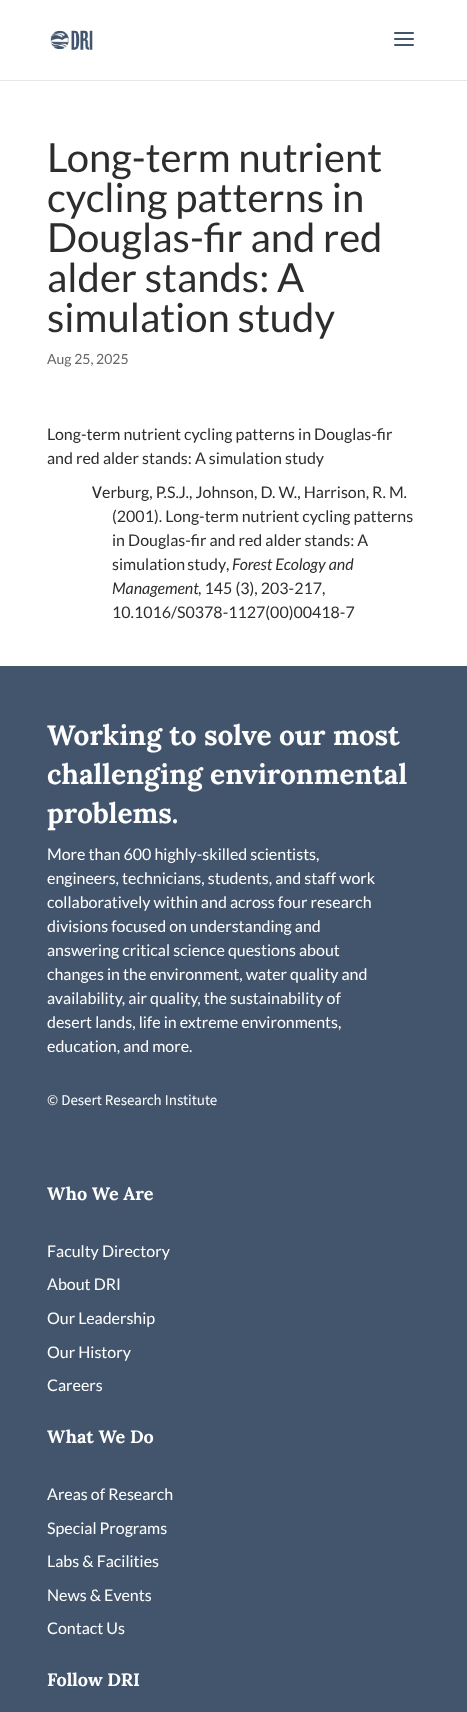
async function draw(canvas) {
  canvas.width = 467
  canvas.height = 1712
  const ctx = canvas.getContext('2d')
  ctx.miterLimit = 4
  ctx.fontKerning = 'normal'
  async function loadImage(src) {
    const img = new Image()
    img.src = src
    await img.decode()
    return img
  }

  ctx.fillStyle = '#fff'
  ctx.fillRect(0, 0, 467, 1712)
  ctx.fillStyle = '#e6e6e6'
  ctx.fillRect(0, 80, 467, 1)
  ctx.drawImage(await loadImage('image0.png'), 50, 30, 43, 20)
  ctx.drawImage(await loadImage('image1.png'), 394, 32, 20, 14)
  ctx.font = '40px Lato'
  ctx.fillStyle = '#2d2d2e'
  ctx.fillText('Long-term nutrient', 47, 172)
  ctx.fillText('cycling patterns in', 47, 212)
  ctx.fillText('Douglas-fir and red', 47, 252)
  ctx.fillText('alder stands: A', 47, 292)
  ctx.fillText('simulation study', 47, 332)
  ctx.font = '14px Lato'
  ctx.fillStyle = '#666'
  ctx.fillText('Aug 25, 2025', 47, 364)
  ctx.font = '16px Lato'
  ctx.fillStyle = '#2d2d2e'
  ctx.fillText('Long-term nutrient cycling patterns in Douglas-fir', 47, 440)
  ctx.fillText('and red alder stands: A simulation study', 47, 464)
  ctx.font = '500 16px Noto Sans'
  ctx.fillText('V', 92, 498)
  ctx.font = '16px Lato'
  ctx.fillText('erburg, P.S.J., Johnson, D. W., Harrison, R. M.', 102, 498)
  ctx.fillText('(2001). Long-term nutrient cycling patterns', 112, 522)
  ctx.fillText('in Douglas-fir and red alder stands: A', 112, 546)
  ctx.wordSpacing = '-1px'
  ctx.fillText('simulation study', 112, 570)
  ctx.wordSpacing = '0px'
  ctx.fillText(',', 226, 570)
  ctx.font = 'italic 16px Lato'
  ctx.fillText('Forest Ecology and', 232, 570)
  ctx.fillText('Management', 112, 594)
  ctx.font = '16px Lato'
  ctx.fillText(', 145 (3), 203-217,', 198, 594)
  ctx.fillText('10.1016/S0378-1127(00)00418-7', 112, 618)
  ctx.fillStyle = '#42556c'
  ctx.fillRect(0, 666, 467, 1046)
  ctx.font = 'bold 28px Lora'
  ctx.fillStyle = '#fff'
  ctx.fillText('Working to solve our most', 47, 745)
  ctx.fillText('challenging environmental', 47, 784)
  ctx.fillText('problems.', 47, 823)
  ctx.font = '16px Lato'
  ctx.fillText('More than 600 highly-skilled scientists,', 47, 860)
  ctx.fillText('engineers, technicians, students, and staff work', 47, 884)
  ctx.fillText('collaboratively within and across four research', 47, 908)
  ctx.fillText('divisions focused on understanding and', 47, 932)
  ctx.fillText('answering critical science questions about', 47, 956)
  ctx.fillText('changes in the environment, water quality and', 47, 980)
  ctx.fillText('availability, air quality, the sustainability of', 47, 1004)
  ctx.fillText('desert lands, life in extreme environments,', 47, 1028)
  ctx.fillText('education, and more.', 47, 1052)
  ctx.font = '15px Source Sans Pro'
  ctx.fillText('© Desert Research Institute', 47, 1105)
  ctx.font = 'bold 18px Lora'
  ctx.fillText('Who We Are', 47, 1200)
  ctx.font = '16px Lato'
  ctx.fillText('Faculty Directory', 47, 1257)
  ctx.fillText('About DRI', 47, 1290)
  ctx.fillText('Our Leadership', 47, 1324)
  ctx.fillText('Our History', 47, 1358)
  ctx.fillText('Careers', 47, 1391)
  ctx.font = 'bold 18px Lora'
  ctx.fillText('What We Do', 47, 1443)
  ctx.font = '16px Lato'
  ctx.fillText('Areas of Research', 47, 1500)
  ctx.fillText('Special Programs', 47, 1534)
  ctx.fillText('Labs & Facilities', 47, 1567)
  ctx.fillText('News & Events', 47, 1601)
  ctx.fillText('Contact Us', 47, 1634)
  ctx.font = 'bold 18px Lora'
  ctx.fillText('Follow DRI', 47, 1686)
}

draw(document.querySelector('canvas'))
